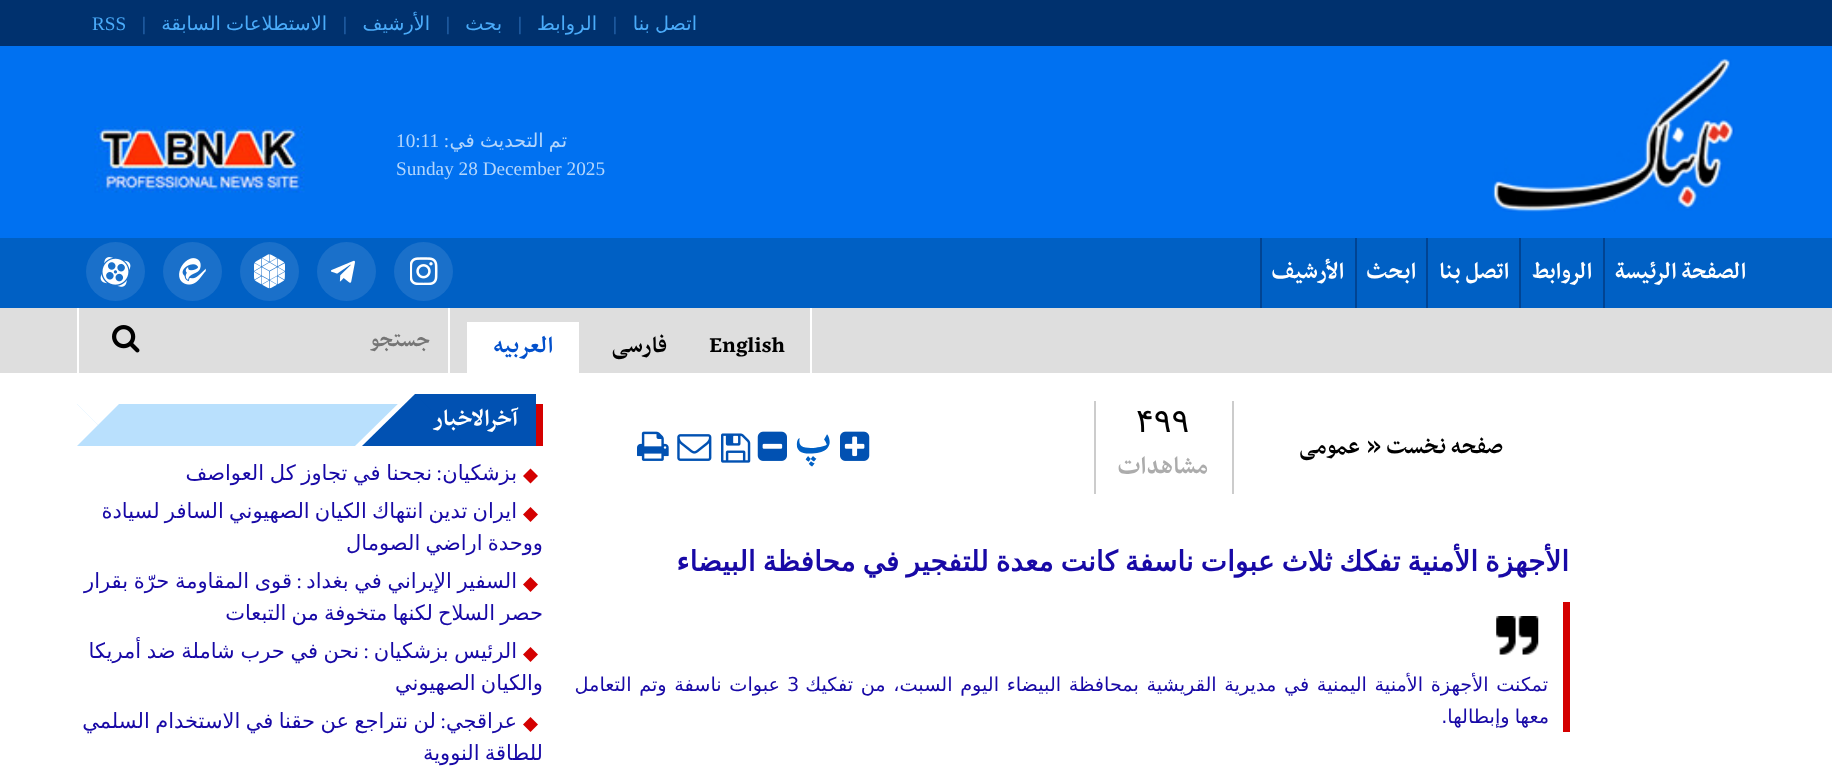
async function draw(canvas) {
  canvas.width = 1832
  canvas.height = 767
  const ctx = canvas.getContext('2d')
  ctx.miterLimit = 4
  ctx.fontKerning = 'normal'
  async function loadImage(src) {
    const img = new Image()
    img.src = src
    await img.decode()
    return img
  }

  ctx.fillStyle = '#fff'
  ctx.fillRect(0, 0, 1832, 767)
  ctx.fillStyle = '#00316e'
  ctx.fillRect(0, 0, 1832, 46)
  ctx.wordSpacing = '-1px'
  ctx.direction = 'rtl'
  ctx.font = '19.25px DejaVu Sans'
  ctx.fillStyle = '#4aabf9'
  ctx.fillText('اتصل بنا', 697, 30)
  ctx.wordSpacing = '0px'
  ctx.direction = 'ltr'
  ctx.font = '19.25px Liberation Serif'
  ctx.fillStyle = '#3275c0'
  ctx.fillText('|', 613, 30)
  ctx.direction = 'rtl'
  ctx.font = '19.25px DejaVu Sans'
  ctx.fillStyle = '#4aabf9'
  ctx.fillText('الروابط', 597, 30)
  ctx.direction = 'ltr'
  ctx.font = '19.25px Liberation Serif'
  ctx.fillStyle = '#3275c0'
  ctx.fillText('|', 518, 30)
  ctx.direction = 'rtl'
  ctx.font = '19.25px DejaVu Sans'
  ctx.fillStyle = '#4aabf9'
  ctx.fillText('بحث', 502, 30)
  ctx.direction = 'ltr'
  ctx.font = '19.25px Liberation Serif'
  ctx.fillStyle = '#3275c0'
  ctx.fillText('|', 446, 30)
  ctx.direction = 'rtl'
  ctx.font = '19.25px DejaVu Sans'
  ctx.fillStyle = '#4aabf9'
  ctx.fillText('الأرشیف', 430, 30)
  ctx.direction = 'ltr'
  ctx.font = '19.25px Liberation Serif'
  ctx.fillStyle = '#3275c0'
  ctx.fillText('|', 343, 30)
  ctx.wordSpacing = '-1px'
  ctx.direction = 'rtl'
  ctx.font = '19.25px DejaVu Sans'
  ctx.fillStyle = '#4aabf9'
  ctx.fillText('الاستطلاعات السابقة', 327, 30)
  ctx.wordSpacing = '0px'
  ctx.direction = 'ltr'
  ctx.font = '19.25px Liberation Serif'
  ctx.fillStyle = '#3275c0'
  ctx.fillText('|', 142, 30)
  ctx.fillStyle = '#4aabf9'
  ctx.fillText('RSS', 92, 30)
  ctx.fillStyle = '#0071f1'
  ctx.fillRect(0, 46, 1832, 192)
  ctx.drawImage(await loadImage('image0.png'), 1492, 58, 243, 154)
  ctx.wordSpacing = '-1px'
  ctx.direction = 'rtl'
  ctx.font = '19.25px DejaVu Sans'
  ctx.fillStyle = '#b3d6fc'
  ctx.fillText('تم التحديث في', 567, 147)
  ctx.wordSpacing = '0px'
  ctx.font = '19.25px Liberation Serif'
  ctx.fillText(':', 449, 147)
  ctx.direction = 'ltr'
  ctx.fillText('10:11', 396, 147)
  ctx.fillText('Sunday 28 December 2025', 396, 175)
  ctx.drawImage(await loadImage('image1.png'), 94, 126, 211, 67)
  ctx.fillStyle = '#0060c4'
  ctx.fillRect(0, 238, 1832, 70)
  ctx.fillStyle = '#014493'
  ctx.fillRect(1603, 238, 2, 70)
  ctx.direction = 'rtl'
  ctx.font = 'bold 26.25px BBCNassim'
  ctx.fillStyle = '#fff'
  ctx.fillText('الصفحة الرئيسة', 1746, 278)
  ctx.fillStyle = '#014493'
  ctx.fillRect(1519, 238, 2, 70)
  ctx.fillStyle = '#fff'
  ctx.fillText('الروابط', 1592, 278)
  ctx.fillStyle = '#014493'
  ctx.fillRect(1426, 238, 2, 70)
  ctx.fillStyle = '#fff'
  ctx.fillText('اتصل بنا', 1509, 278)
  ctx.fillStyle = '#014493'
  ctx.fillRect(1355, 238, 2, 70)
  ctx.fillStyle = '#fff'
  ctx.fillText('ابحث', 1416, 278)
  ctx.fillStyle = '#014493'
  ctx.fillRect(1260, 238, 2, 70)
  ctx.fillStyle = '#fff'
  ctx.fillText('الأرشیف', 1344, 278)
  ctx.fillStyle = '#1a70ca'
  ctx.beginPath()
  ctx.arc(423.5, 271.5, 29.5, 0, 2 * Math.PI)
  ctx.fill()
  ctx.drawImage(await loadImage('image2.png'), 410, 257, 28, 28)
  ctx.beginPath()
  ctx.arc(346.5, 271.5, 29.5, 0, 2 * Math.PI)
  ctx.fill()
  ctx.drawImage(await loadImage('image3.png'), 331, 260, 24, 23)
  ctx.beginPath()
  ctx.arc(269.5, 271.5, 29.5, 0, 2 * Math.PI)
  ctx.fill()
  ctx.drawImage(await loadImage('image4.png'), 254, 254, 31, 35)
  ctx.beginPath()
  ctx.arc(192.5, 271.5, 29.5, 0, 2 * Math.PI)
  ctx.fill()
  ctx.drawImage(await loadImage('image5.png'), 179, 258, 27, 27)
  ctx.beginPath()
  ctx.arc(115.5, 271.5, 29.5, 0, 2 * Math.PI)
  ctx.fill()
  ctx.drawImage(await loadImage('image6.png'), 100, 257, 31, 30)
  ctx.fillStyle = '#dedede'
  ctx.fillRect(0, 308, 1832, 65)
  ctx.fillStyle = '#fff'
  ctx.fillRect(810, 308, 2, 65)
  ctx.direction = 'ltr'
  ctx.fillStyle = '#000'
  ctx.fillText('English', 709, 352)
  ctx.direction = 'rtl'
  ctx.fillText('فارسی', 667, 352)
  ctx.fillStyle = '#fff'
  ctx.fillRect(467, 322, 112, 51)
  ctx.fillStyle = '#0250cc'
  ctx.fillText('العربیه', 553, 352)
  ctx.fillStyle = '#fff'
  ctx.fillRect(448, 308, 2, 65)
  ctx.fillRect(77, 308, 2, 65)
  ctx.font = 'bold 24.5px BBCNassim'
  ctx.fillStyle = '#757575'
  ctx.fillText('جستجو', 430, 346)
  ctx.drawImage(await loadImage('image7.png'), 112, 325, 28, 28)
  ctx.font = 'bold 26.25px BBCNassim'
  ctx.fillStyle = '#000'
  ctx.fillText('صفحه نخست', 1503, 453)
  ctx.direction = 'ltr'
  ctx.font = 'bold 32px BBCNassim'
  ctx.fillText('»', 1366, 453)
  ctx.direction = 'rtl'
  ctx.font = 'bold 26.25px BBCNassim'
  ctx.fillText('عمومی', 1360, 453)
  ctx.fillStyle = '#ccc'
  ctx.fillRect(1232, 401, 2, 93)
  ctx.fillRect(1094, 401, 2, 93)
  ctx.direction = 'ltr'
  ctx.font = '33px DejaVu Sans'
  ctx.fillStyle = '#000'
  ctx.fillText('۴۹۹', 1136, 432)
  ctx.direction = 'rtl'
  ctx.font = 'bold 28px BBCNassim'
  ctx.fillStyle = '#acacac'
  ctx.fillText('مشاهدات', 1208, 473)
  ctx.drawImage(await loadImage('image8.png'), 840, 431, 30, 30)
  ctx.font = 'bold 44px BBCNassim'
  ctx.fillStyle = '#0060c4'
  ctx.fillText('‍ پ', 839, 452)
  ctx.drawImage(await loadImage('image9.png'), 757, 431, 30, 30)
  ctx.drawImage(await loadImage('image10.png'), 721, 433, 30, 30)
  ctx.drawImage(await loadImage('image11.png'), 677, 434, 35, 27)
  ctx.drawImage(await loadImage('image12.png'), 637, 431, 32, 30)
  ctx.save()
  ctx.beginPath()
  ctx.rect(543, 383, 1027, 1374)
  ctx.clip()
  ctx.wordSpacing = '-1.9px'
  ctx.font = 'bold 28px DejaVu Sans'
  ctx.fillStyle = '#1809a6'
  ctx.fillText('الأجهزة الأمنية تفكك ثلاث عبوات ناسفة كانت معدة للتفجير في محافظة البيضاء', 1569, 571)
  ctx.restore()
  ctx.fillStyle = '#d40000'
  ctx.fillRect(1563, 602, 7, 130)
  ctx.drawImage(await loadImage('image13.png'), 1496, 616, 43, 39)
  ctx.wordSpacing = '1.5px'
  ctx.font = '19.25px DejaVu Sans'
  ctx.fillStyle = '#1809a6'
  ctx.fillText('تمكنت الأجهزة الأمنية اليمنية في مديرية القريشية بمحافظة البيضاء اليوم السبت، من تفكيك', 1548, 691)
  ctx.wordSpacing = '0px'
  ctx.direction = 'ltr'
  ctx.fillText('3', 787, 691)
  ctx.wordSpacing = '1.5px'
  ctx.direction = 'rtl'
  ctx.fillText('عبوات ناسفة وتم التعامل', 780, 691)
  ctx.wordSpacing = '-1px'
  ctx.fillText('معها وإبطالها.', 1549, 723)
  ctx.fillStyle = '#b9e0fd'
  ctx.fillRect(77, 404, 321, 42)
  ctx.fillStyle = '#d40000'
  ctx.fillRect(536, 404, 7, 42)
  ctx.fillStyle = '#0151b2'
  ctx.fillRect(415, 394, 121, 52)
  ctx.fillStyle = '#fff'
  ctx.beginPath()
  ctx.moveTo(460, 446)
  ctx.lineTo(355, 446)
  ctx.lineTo(408, 394)
  ctx.closePath()
  ctx.fill()
  ctx.fillStyle = '#0151b2'
  ctx.beginPath()
  ctx.moveTo(467, 446)
  ctx.lineTo(362, 446)
  ctx.lineTo(415, 394)
  ctx.closePath()
  ctx.fill()
  ctx.wordSpacing = '0px'
  ctx.font = 'bold 26.25px BBCNassim'
  ctx.fillStyle = '#fff'
  ctx.fillText('آخرالاخبار', 518, 425)
  ctx.beginPath()
  ctx.moveTo(77, 404)
  ctx.lineTo(119, 404)
  ctx.lineTo(98, 425)
  ctx.closePath()
  ctx.fill()
  ctx.beginPath()
  ctx.moveTo(77, 446)
  ctx.lineTo(77, 404)
  ctx.lineTo(98, 425)
  ctx.closePath()
  ctx.fill()
  ctx.fillStyle = '#d40000'
  ctx.beginPath()
  ctx.moveTo(530.5, 468.5)
  ctx.lineTo(538, 476)
  ctx.lineTo(530.5, 483.5)
  ctx.lineTo(523, 476)
  ctx.closePath()
  ctx.fill()
  ctx.font = '21px DejaVu Sans'
  ctx.fillStyle = '#1809a6'
  ctx.fillText('بزشكيان', 517, 480)
  ctx.font = '21px Liberation Serif'
  ctx.fillText(':', 442, 480)
  ctx.wordSpacing = '-1px'
  ctx.font = '21px DejaVu Sans'
  ctx.fillText('نجحنا في تجاوز كل العواصف', 432, 480)
  ctx.wordSpacing = '-1.5px'
  ctx.fillText('ايران تدين انتهاك الكيان الصهيوني السافر لسيادة', 517, 518)
  ctx.fillStyle = '#d40000'
  ctx.beginPath()
  ctx.moveTo(530.5, 507)
  ctx.lineTo(538, 514.5)
  ctx.lineTo(530.5, 522)
  ctx.lineTo(523, 514.5)
  ctx.closePath()
  ctx.fill()
  ctx.save()
  ctx.beginPath()
  ctx.rect(77, 383, 466, 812)
  ctx.clip()
  ctx.fillStyle = '#1809a6'
  ctx.fillText('ووحدة اراضي الصومال', 543, 550)
  ctx.restore()
  ctx.beginPath()
  ctx.moveTo(530.5, 577)
  ctx.lineTo(538, 584.5)
  ctx.lineTo(530.5, 592)
  ctx.lineTo(523, 584.5)
  ctx.closePath()
  ctx.fill()
  ctx.wordSpacing = '-1px'
  ctx.fillStyle = '#1809a6'
  ctx.fillText('السفير الإيراني في بغداد', 517, 588)
  ctx.wordSpacing = '0px'
  ctx.font = '21px Liberation Serif'
  ctx.fillText(':', 302, 588)
  ctx.wordSpacing = '-1px'
  ctx.font = '21px DejaVu Sans'
  ctx.fillText('قوى المقاومة حرّة بقرار', 292, 588)
  ctx.save()
  ctx.beginPath()
  ctx.rect(77, 383, 466, 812)
  ctx.clip()
  ctx.wordSpacing = '-1.5px'
  ctx.fillText('حصر السلاح لكنها متخوفة من التبعات', 543, 620)
  ctx.restore()
  ctx.fillStyle = '#d40000'
  ctx.beginPath()
  ctx.moveTo(530.5, 647)
  ctx.lineTo(538, 654.5)
  ctx.lineTo(530.5, 662)
  ctx.lineTo(523, 654.5)
  ctx.closePath()
  ctx.fill()
  ctx.fillStyle = '#1809a6'
  ctx.fillText('الرئيس بزشكيان', 517, 658)
  ctx.wordSpacing = '0px'
  ctx.font = '21px Liberation Serif'
  ctx.fillText(':', 369, 658)
  ctx.wordSpacing = '-1px'
  ctx.font = '21px DejaVu Sans'
  ctx.fillText('نحن في حرب شاملة ضد أمريكا', 359, 658)
  ctx.wordSpacing = '-1.5px'
  ctx.fillText('والكيان الصهيوني', 543, 690)
  ctx.fillStyle = '#d40000'
  ctx.beginPath()
  ctx.moveTo(530.5, 717)
  ctx.lineTo(538, 724.5)
  ctx.lineTo(530.5, 732)
  ctx.lineTo(523, 724.5)
  ctx.closePath()
  ctx.fill()
  ctx.wordSpacing = '0px'
  ctx.fillStyle = '#1809a6'
  ctx.fillText('عراقجي', 517, 728)
  ctx.wordSpacing = '-1.25px'
  ctx.fillText('لن نتراجع عن حقنا في الاستخدام السلمي', 436, 728)
  ctx.wordSpacing = '0px'
  ctx.font = '21px Liberation Serif'
  ctx.fillText(':', 446, 728)
  ctx.wordSpacing = '-1.5px'
  ctx.font = '21px DejaVu Sans'
  ctx.fillText('للطاقة النووية', 543, 760)
}

draw(document.querySelector('canvas'))
